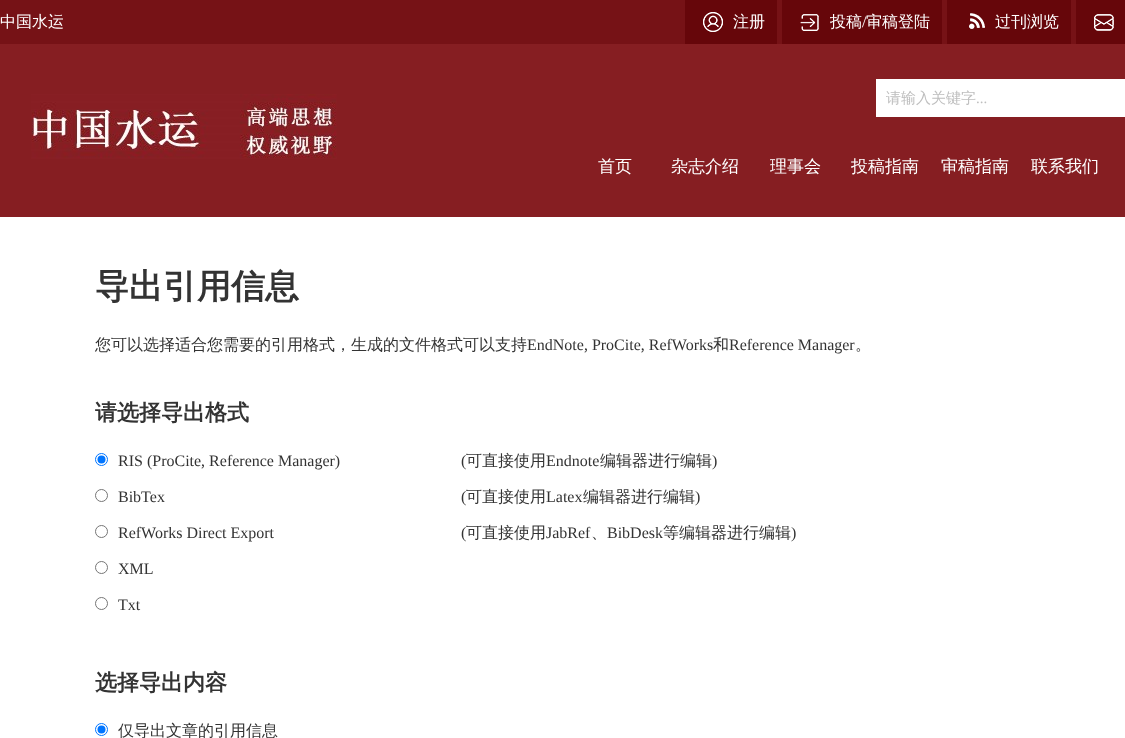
async function draw(canvas) {
  canvas.width = 1125
  canvas.height = 738
  const ctx = canvas.getContext('2d')
  ctx.miterLimit = 4
  ctx.fontKerning = 'normal'
  async function loadImage(src) {
    const img = new Image()
    img.src = src
    await img.decode()
    return img
  }

  ctx.fillStyle = '#fff'
  ctx.fillRect(0, 0, 1125, 738)
  ctx.fillStyle = '#761216'
  ctx.fillRect(0, 0, 1076, 44)
  ctx.font = '500 16px WenQuanYi Zen Hei'
  ctx.fillStyle = '#fff'
  ctx.fillText('中国水运', 0, 27)
  ctx.fillStyle = '#66060a'
  ctx.fillRect(685, 0, 92, 44)
  ctx.drawImage(await loadImage('image0.png'), 703, 12, 20, 20)
  ctx.fillStyle = '#fff'
  ctx.fillText('注册', 733, 27)
  ctx.fillStyle = '#66060a'
  ctx.fillRect(782, 0, 160, 44)
  ctx.drawImage(await loadImage('image1.png'), 800, 14, 19, 17)
  ctx.fillStyle = '#fff'
  ctx.fillText('投稿', 830, 27)
  ctx.font = '16px Liberation Serif'
  ctx.fillText('/', 862, 27)
  ctx.font = '500 16px WenQuanYi Zen Hei'
  ctx.fillText('审稿登陆', 866, 27)
  ctx.fillStyle = '#66060a'
  ctx.fillRect(947, 0, 124, 44)
  ctx.drawImage(await loadImage('image2.png'), 969, 13, 16, 16)
  ctx.fillStyle = '#fff'
  ctx.fillText('过刊浏览', 995, 27)
  ctx.fillStyle = '#66060a'
  ctx.fillRect(1076, 0, 49, 44)
  ctx.drawImage(await loadImage('image3.png'), 1094, 14, 20, 17)
  ctx.fillStyle = '#861e22'
  ctx.fillRect(0, 44, 1125, 173)
  ctx.drawImage(await loadImage('image4.png'), 31, 94, 306, 65)
  ctx.fillStyle = '#fff'
  ctx.fillRect(876, 79, 249, 38)
  ctx.font = '500 15px WenQuanYi Zen Hei'
  ctx.fillStyle = '#bebebe'
  ctx.fillText('请输入关键字', 886, 103)
  ctx.font = '15px Liberation Serif'
  ctx.fillText('...', 976, 103)
  ctx.font = '500 17px WenQuanYi Zen Hei'
  ctx.fillStyle = '#fff'
  ctx.fillText('首页', 598, 172)
  ctx.fillText('杂志介绍', 671, 172)
  ctx.fillText('理事会', 770, 172)
  ctx.fillText('投稿指南', 851, 172)
  ctx.fillText('审稿指南', 941, 172)
  ctx.fillText('联系我们', 1031, 172)
  ctx.font = 'bold 34px WenQuanYi Zen Hei'
  ctx.fillStyle = '#333'
  ctx.fillText('导出引用信息', 95, 298)
  ctx.font = '500 16px WenQuanYi Zen Hei'
  ctx.fillText('您可以选择适合您需要的引用格式，生成的文件格式可以支持', 95, 350)
  ctx.font = '16px Liberation Serif'
  ctx.fillText('EndNote, ProCite, RefWorks', 527, 350)
  ctx.font = '500 16px WenQuanYi Zen Hei'
  ctx.fillText('和', 713, 350)
  ctx.font = '16px Liberation Serif'
  ctx.fillText('Reference Manager', 729, 350)
  ctx.font = '500 16px WenQuanYi Zen Hei'
  ctx.fillText('。', 855, 350)
  ctx.font = 'bold 22px WenQuanYi Zen Hei'
  ctx.fillText('请选择导出格式', 95, 420)
  ctx.beginPath()
  ctx.arc(101.5, 459.5, 6, 0, 2 * Math.PI)
  ctx.strokeStyle = '#0075ff'
  ctx.stroke()
  ctx.fillStyle = '#0075ff'
  ctx.beginPath()
  ctx.arc(101.5, 459.5, 4, 0, 2 * Math.PI)
  ctx.fill()
  ctx.font = '16px Liberation Serif'
  ctx.fillStyle = '#333'
  ctx.fillText('RIS (ProCite, Reference Manager)', 118, 466)
  ctx.fillText('(', 461, 466)
  ctx.font = '500 16px WenQuanYi Zen Hei'
  ctx.fillText('可直接使用', 466, 466)
  ctx.font = '16px Liberation Serif'
  ctx.fillText('Endnote', 546, 466)
  ctx.font = '500 16px WenQuanYi Zen Hei'
  ctx.fillText('编辑器进行编辑', 600, 466)
  ctx.font = '16px Liberation Serif'
  ctx.fillText(')', 712, 466)
  ctx.beginPath()
  ctx.arc(101.5, 495.5, 6, 0, 2 * Math.PI)
  ctx.strokeStyle = '#767676'
  ctx.stroke()
  ctx.fillText('BibTex', 118, 502)
  ctx.fillText('(', 461, 502)
  ctx.font = '500 16px WenQuanYi Zen Hei'
  ctx.fillText('可直接使用', 466, 502)
  ctx.font = '16px Liberation Serif'
  ctx.fillText('Latex', 546, 502)
  ctx.font = '500 16px WenQuanYi Zen Hei'
  ctx.fillText('编辑器进行编辑', 583, 502)
  ctx.font = '16px Liberation Serif'
  ctx.fillText(')', 695, 502)
  ctx.beginPath()
  ctx.arc(101.5, 531.5, 6, 0, 2 * Math.PI)
  ctx.stroke()
  ctx.fillText('RefWorks Direct Export', 118, 538)
  ctx.fillText('(', 461, 538)
  ctx.font = '500 16px WenQuanYi Zen Hei'
  ctx.fillText('可直接使用', 466, 538)
  ctx.font = '16px Liberation Serif'
  ctx.fillText('JabRef', 546, 538)
  ctx.font = '500 16px WenQuanYi Zen Hei'
  ctx.fillText('、', 591, 538)
  ctx.font = '16px Liberation Serif'
  ctx.fillText('BibDesk', 607, 538)
  ctx.font = '500 16px WenQuanYi Zen Hei'
  ctx.fillText('等编辑器进行编辑', 663, 538)
  ctx.font = '16px Liberation Serif'
  ctx.fillText(')', 791, 538)
  ctx.beginPath()
  ctx.arc(101.5, 567.5, 6, 0, 2 * Math.PI)
  ctx.stroke()
  ctx.fillText('XML', 118, 574)
  ctx.beginPath()
  ctx.arc(101.5, 603.5, 6, 0, 2 * Math.PI)
  ctx.stroke()
  ctx.fillText('Txt', 118, 610)
  ctx.font = 'bold 22px WenQuanYi Zen Hei'
  ctx.fillText('选择导出内容', 95, 690)
  ctx.beginPath()
  ctx.arc(101.5, 729.5, 6, 0, 2 * Math.PI)
  ctx.strokeStyle = '#0075ff'
  ctx.stroke()
  ctx.fillStyle = '#0075ff'
  ctx.beginPath()
  ctx.arc(101.5, 729.5, 4, 0, 2 * Math.PI)
  ctx.fill()
  ctx.font = '500 16px WenQuanYi Zen Hei'
  ctx.fillStyle = '#333'
  ctx.fillText('仅导出文章的引用信息', 118, 736)
}

draw(document.querySelector('canvas'))
